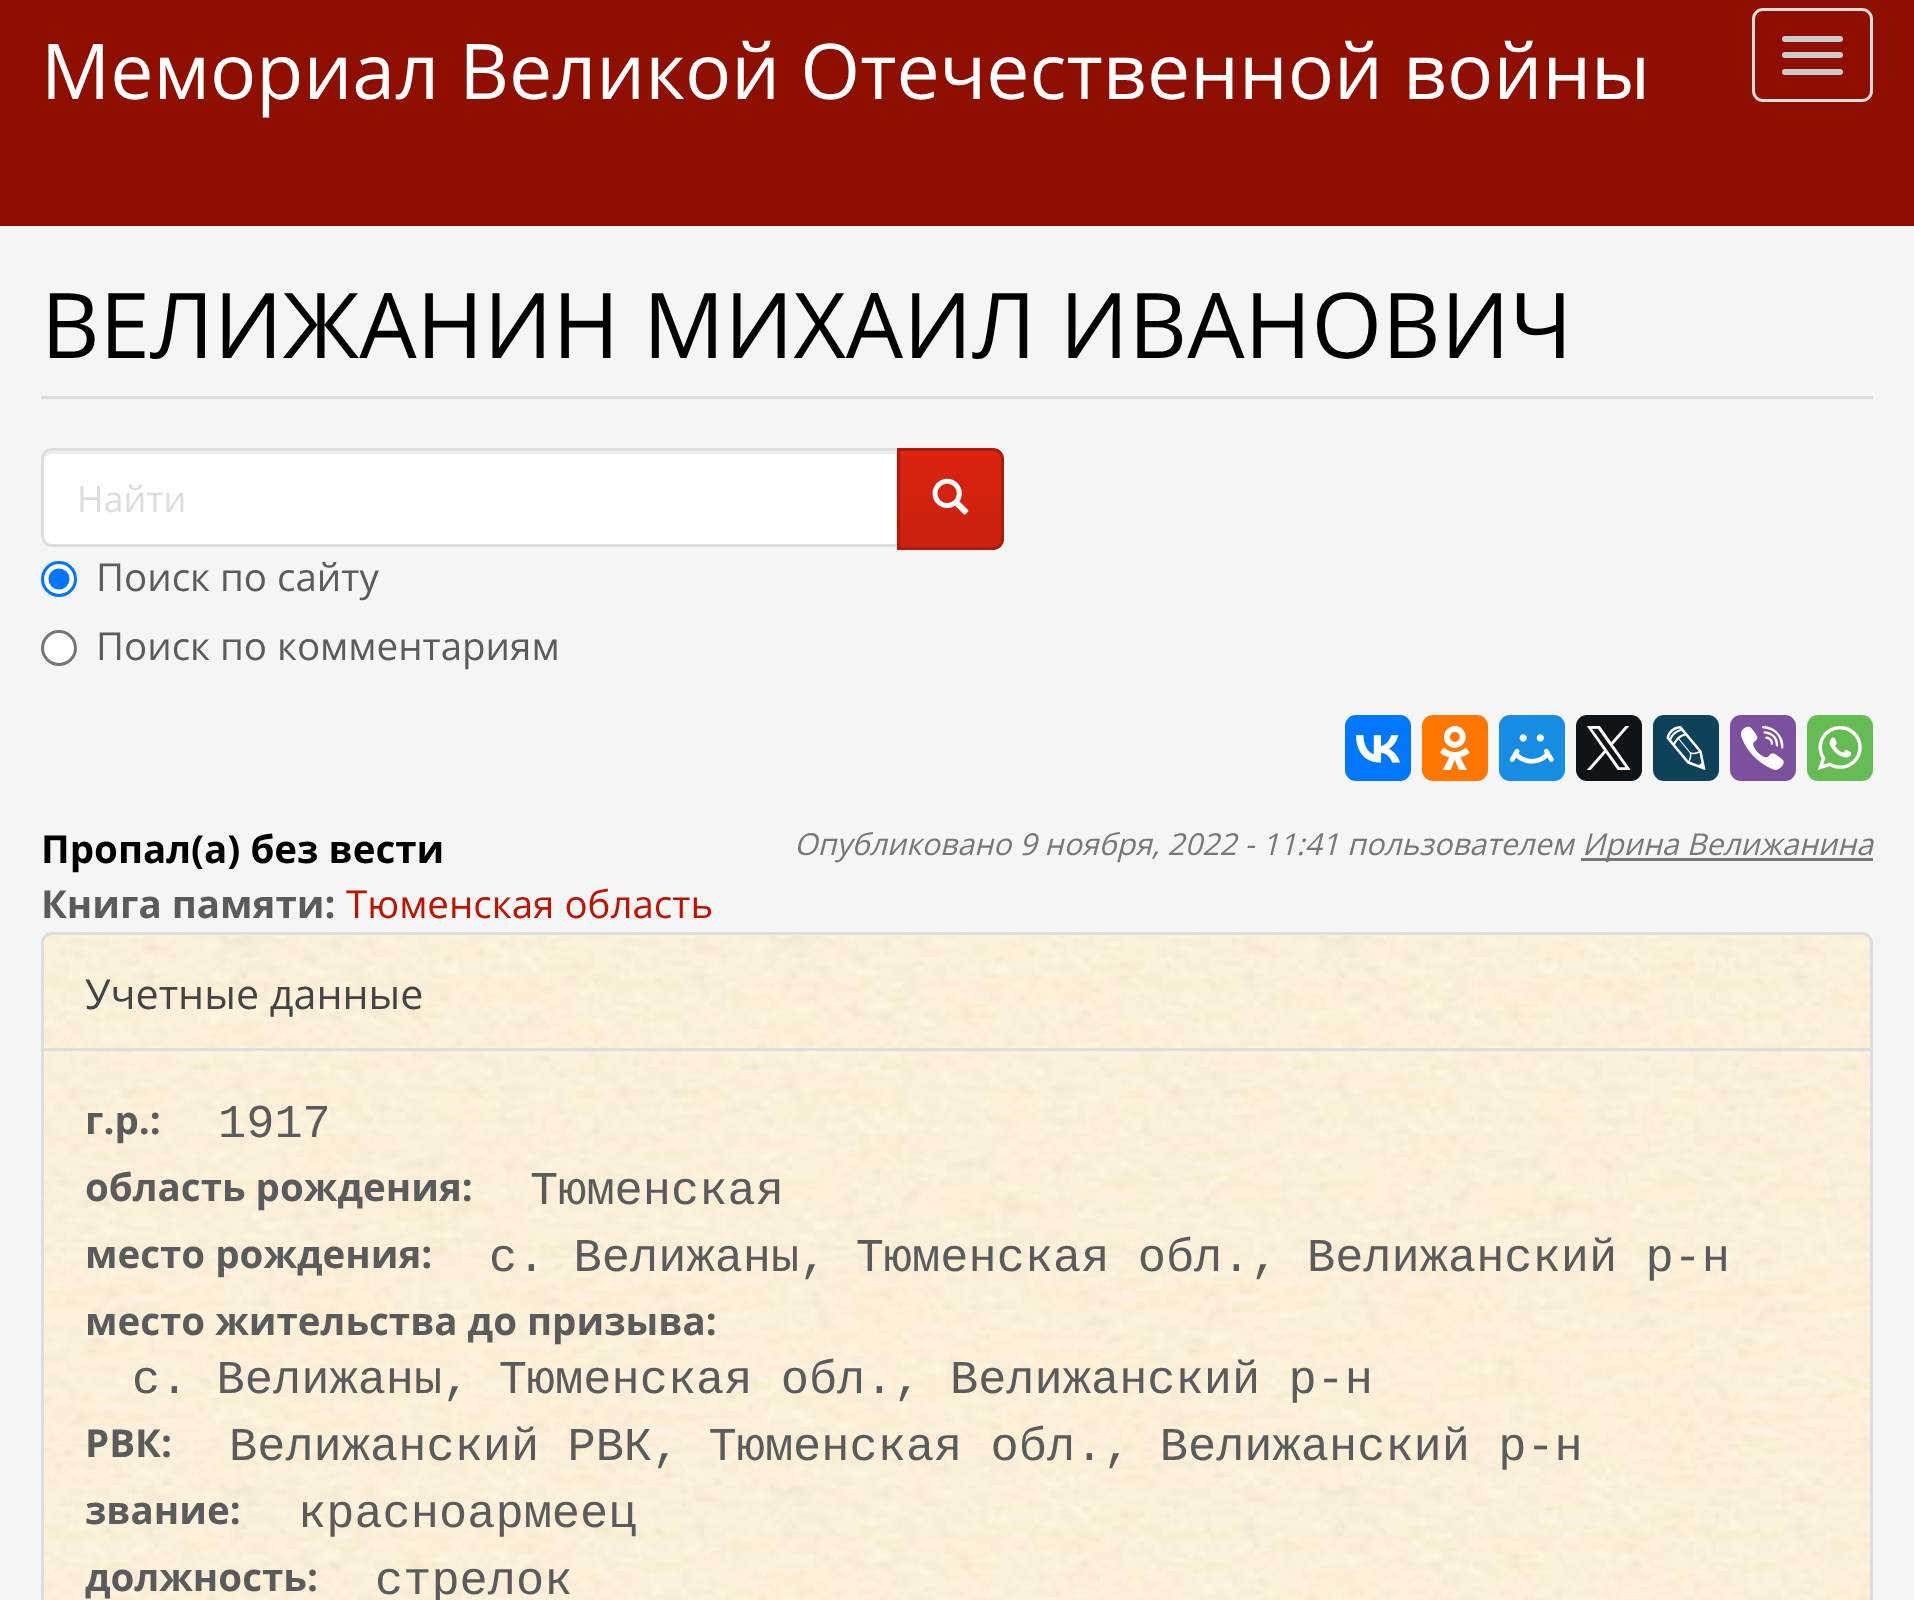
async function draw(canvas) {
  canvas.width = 1914
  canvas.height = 1600
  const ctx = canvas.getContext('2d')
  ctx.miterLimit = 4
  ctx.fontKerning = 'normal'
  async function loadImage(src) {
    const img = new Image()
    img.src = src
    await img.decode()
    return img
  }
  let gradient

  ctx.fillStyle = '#f5f5f5'
  ctx.fillRect(0, 0, 1914, 1600)
  ctx.fillStyle = '#8e0e00'
  ctx.fillRect(0, 0, 1914, 226)
  ctx.font = '77px Open Sans'
  ctx.fillStyle = '#fff'
  ctx.fillText('Мемориал Великой Отечественной войны', 41, 99)
  ctx.beginPath()
  ctx.roundRect(1753.5, 9.5, 118, 91, 9.5)
  ctx.strokeStyle = '#ddd'
  ctx.lineWidth = 3
  ctx.stroke()
  ctx.fillStyle = '#ccc'
  ctx.beginPath()
  ctx.roundRect(1782, 36, 61, 6, 3)
  ctx.fill()
  ctx.beginPath()
  ctx.roundRect(1782, 52, 61, 6, 3)
  ctx.fill()
  ctx.beginPath()
  ctx.roundRect(1782, 69, 61, 6, 3)
  ctx.fill()
  ctx.fillStyle = '#ddd'
  ctx.fillRect(41, 396, 1832, 3)
  ctx.font = '90.75px Open Sans'
  ctx.fillStyle = '#000'
  ctx.fillText('ВЕЛИЖАНИН МИХАИЛ ИВАНОВИЧ', 41, 358)
  ctx.fillStyle = '#fff'
  ctx.beginPath()
  ctx.roundRect(41, 448, 858, 99, [11, 0, 0, 11])
  ctx.fill()
  ctx.fillStyle = '#ececec'
  ctx.beginPath()
  ctx.moveTo(52, 454)
  ctx.lineTo(896, 454)
  ctx.lineTo(896, 545)
  ctx.lineTo(897, 545)
  ctx.lineTo(897, 451)
  ctx.lineTo(52, 451)
  ctx.bezierCurveTo(46, 451, 44, 457, 44, 462)
  ctx.bezierCurveTo(44, 457, 48, 454, 52, 454)
  ctx.closePath()
  ctx.fill()
  ctx.beginPath()
  ctx.roundRect(42.5, 449.5, 855, 96, [9.5, 0, 0, 9.5])
  ctx.stroke()
  ctx.font = '36px Open Sans'
  ctx.fillStyle = '#ddd'
  ctx.fillText('Найти', 77, 512)
  gradient = ctx.createLinearGradient(950, 451, 950, 547)
  gradient.addColorStop(0, '#e72510')
  gradient.addColorStop(0.06, '#d9230f')
  gradient.addColorStop(1, '#cb210e')
  ctx.fillStyle = gradient
  ctx.fillRect(900, 451, 101, 96)
  ctx.beginPath()
  ctx.roundRect(898.5, 449.5, 104, 99, [0, 9.5, 9.5, 0])
  ctx.strokeStyle = '#a91b0c'
  ctx.stroke()
  ctx.drawImage(await loadImage('image0.png'), 932, 478, 37, 37)
  ctx.fillStyle = '#fff'
  ctx.beginPath()
  ctx.arc(59, 579, 16.5, 0, 2 * Math.PI)
  ctx.fill()
  ctx.strokeStyle = '#0075ff'
  ctx.stroke()
  ctx.fillStyle = '#0075ff'
  ctx.beginPath()
  ctx.arc(59, 579, 10.5, 0, 2 * Math.PI)
  ctx.fill()
  ctx.font = '38.5px Open Sans'
  ctx.fillStyle = '#5b5b5b'
  ctx.fillText('Поиск по сайту', 96, 591)
  ctx.fillStyle = '#fff'
  ctx.beginPath()
  ctx.arc(59, 648, 16.5, 0, 2 * Math.PI)
  ctx.fill()
  ctx.strokeStyle = '#767676'
  ctx.stroke()
  ctx.fillStyle = '#5b5b5b'
  ctx.fillText('Поиск по комментариям', 96, 660)
  ctx.fillStyle = '#07f'
  ctx.beginPath()
  ctx.roundRect(1345, 715, 66, 66, 11)
  ctx.fill()
  ctx.drawImage(await loadImage('image1.png'), 1355, 735, 45, 28)
  ctx.fillStyle = '#f70'
  ctx.beginPath()
  ctx.roundRect(1422, 715, 66, 66, 11)
  ctx.fill()
  ctx.drawImage(await loadImage('image2.png'), 1440, 726, 30, 44)
  ctx.fillStyle = '#168de2'
  ctx.beginPath()
  ctx.roundRect(1499, 715, 66, 66, 11)
  ctx.fill()
  ctx.drawImage(await loadImage('image3.png'), 1509, 734, 45, 30)
  ctx.fillStyle = '#0f1419'
  ctx.beginPath()
  ctx.roundRect(1576, 715, 66, 66, 11)
  ctx.fill()
  ctx.drawImage(await loadImage('image4.png'), 1586, 726, 45, 44)
  ctx.fillStyle = '#0d425a'
  ctx.beginPath()
  ctx.roundRect(1653, 715, 66, 66, 11)
  ctx.fill()
  ctx.drawImage(await loadImage('image5.png'), 1666, 726, 40, 44)
  ctx.fillStyle = '#7b519d'
  ctx.beginPath()
  ctx.roundRect(1730, 715, 66, 66, 11)
  ctx.fill()
  ctx.drawImage(await loadImage('image6.png'), 1740, 726, 44, 44)
  ctx.fillStyle = '#65bc54'
  ctx.beginPath()
  ctx.roundRect(1807, 715, 66, 66, 11)
  ctx.fill()
  ctx.drawImage(await loadImage('image7.png'), 1817, 726, 45, 44)
  ctx.font = 'bold 38.5px Open Sans'
  ctx.fillStyle = '#000'
  ctx.fillText('Пропал(а) без вести', 41, 863)
  ctx.font = 'italic 30.25px Open Sans'
  ctx.fillStyle = '#777'
  ctx.fillText('Опубликовано 9 ноября, 2022 - 11:41 пользователем', 794, 855)
  ctx.fillRect(1581, 858, 292, 3)
  ctx.fillText('Ирина Велижанина', 1582, 855)
  ctx.font = 'bold 38.5px Open Sans'
  ctx.fillStyle = '#5b5b5b'
  ctx.fillText('Книга памяти:', 41, 918)
  ctx.font = '38.5px Open Sans'
  ctx.fillStyle = '#bd1300'
  ctx.fillText('Тюменская область', 346, 918)
  ctx.drawImage(await loadImage('image8.png'), 41, 932, 1832, 668)
  ctx.beginPath()
  ctx.roundRect(42.5, 933.5, 1829, 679, 9.5)
  ctx.strokeStyle = '#ddd'
  ctx.stroke()
  ctx.fillStyle = '#ddd'
  ctx.fillRect(44, 1048, 1826, 3)
  ctx.font = '41.25px Open Sans'
  ctx.fillStyle = '#444'
  ctx.fillText('Учетные данные', 85, 1009)
  ctx.font = 'bold 38.5px Open Sans'
  ctx.fillStyle = '#5b5b5b'
  ctx.fillText('г.р.:', 85, 1134)
  ctx.font = '47px Liberation Mono'
  ctx.fillText('1917', 218, 1137)
  ctx.font = 'bold 38.5px Open Sans'
  ctx.fillText('область рождения:', 85, 1201)
  ctx.font = '47px Liberation Mono'
  ctx.fillText('Тюменская', 530, 1204)
  ctx.font = 'bold 38.5px Open Sans'
  ctx.fillText('место рождения:', 85, 1268)
  ctx.font = '47px Liberation Mono'
  ctx.fillText('с. Велижаны, Тюменская обл., Велижанский р-н', 489, 1271)
  ctx.font = 'bold 38.5px Open Sans'
  ctx.fillText('место жительства до призыва:', 85, 1335)
  ctx.font = '47px Liberation Mono'
  ctx.fillText('с. Велижаны, Тюменская обл., Велижанский р-н', 132, 1393)
  ctx.font = 'bold 38.5px Open Sans'
  ctx.fillText('РВК:', 85, 1457)
  ctx.font = '47px Liberation Mono'
  ctx.fillText('Велижанский РВК, Тюменская обл., Велижанский р-н', 229, 1460)
  ctx.font = 'bold 38.5px Open Sans'
  ctx.fillText('звание:', 85, 1524)
  ctx.font = '47px Liberation Mono'
  ctx.fillText('красноармеец', 298, 1527)
  ctx.font = 'bold 38.5px Open Sans'
  ctx.fillText('должность:', 85, 1591)
  ctx.font = '47px Liberation Mono'
  ctx.fillText('стрелок', 375, 1594)
}

draw(document.querySelector('canvas'))
